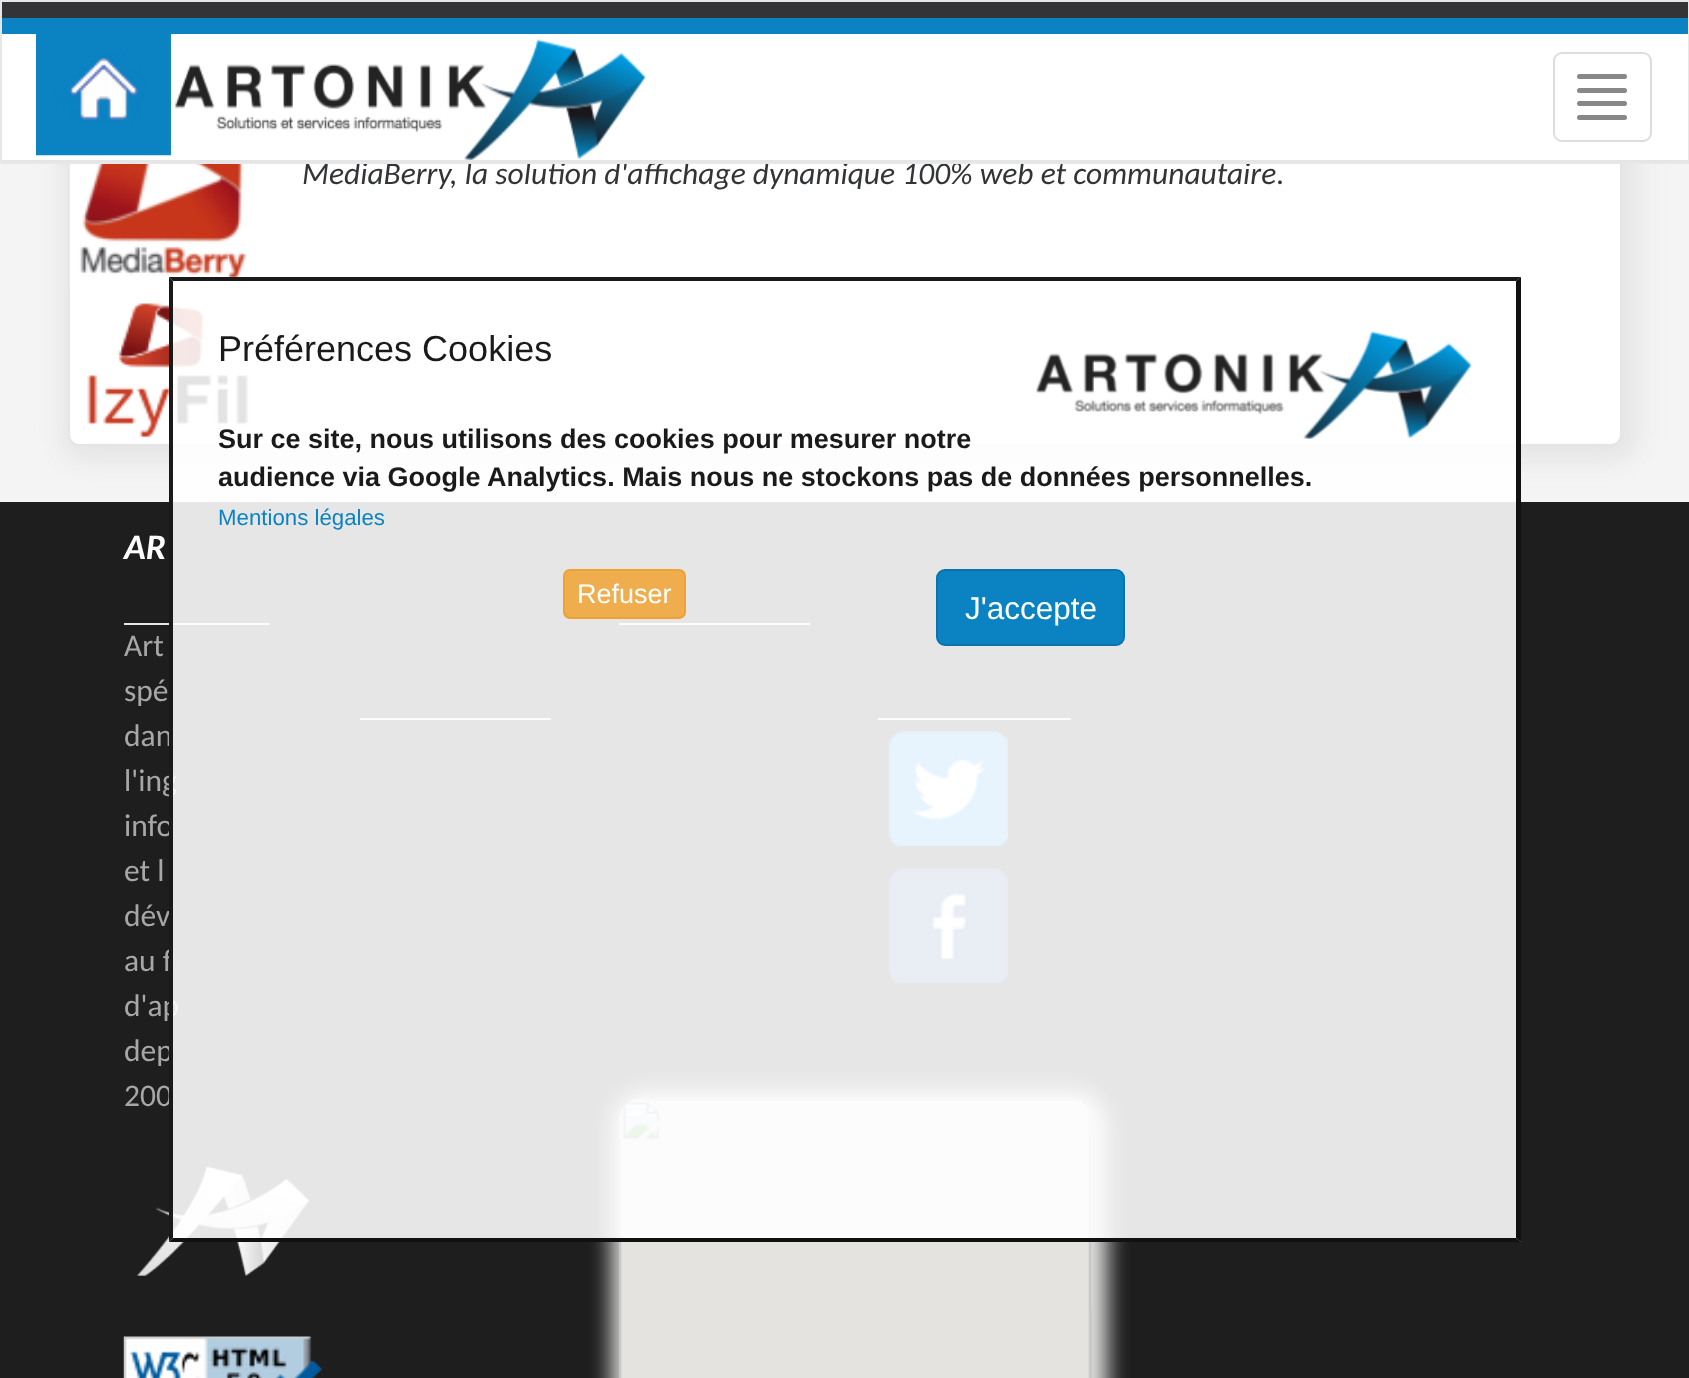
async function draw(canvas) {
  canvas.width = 1689
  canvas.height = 1378
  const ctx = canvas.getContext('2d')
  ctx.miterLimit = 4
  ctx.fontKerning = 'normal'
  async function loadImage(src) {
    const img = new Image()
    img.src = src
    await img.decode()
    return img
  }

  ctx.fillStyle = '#f5f4f4'
  ctx.fillRect(0, 0, 1689, 1378)
  ctx.fillStyle = '#e5e5e5'
  ctx.filter = 'blur(11px)'
  ctx.beginPath()
  ctx.roundRect(61, -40, 1577, 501, 23)
  ctx.fill()
  ctx.filter = 'none'
  ctx.fillStyle = '#fff'
  ctx.beginPath()
  ctx.roundRect(69, -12, 1552, 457, 10)
  ctx.fill()
  ctx.strokeStyle = '#e5e5e5'
  ctx.lineWidth = 2
  ctx.stroke()
  ctx.font = 'italic 31.5px Carlito'
  ctx.fillStyle = '#323437'
  ctx.fillText('MediaBerry, la solution d\'affichage dynamique 100% web et communautaire', 302, 184)
  ctx.strokeStyle = '#e7e7e7'
  ctx.strokeRect(1, 1, 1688, 162)
  ctx.fillRect(2, 2, 1686, 16)
  ctx.fillStyle = '#0b83c2'
  ctx.fillRect(2, 18, 1686, 16)
  ctx.fillStyle = '#fff'
  ctx.fillRect(2, 34, 1686, 126)
  ctx.fillStyle = '#e5e5e5'
  ctx.fillRect(2, 160, 1686, 2)
  ctx.drawImage(await loadImage('image0.png'), 36, 34, 135, 122)
  ctx.drawImage(await loadImage('image1.png'), 174, 39, 472, 121)
  ctx.beginPath()
  ctx.roundRect(1554, 53, 97, 88, 8)
  ctx.strokeStyle = '#ddd'
  ctx.stroke()
  ctx.fillStyle = '#888'
  ctx.beginPath()
  ctx.roundRect(1577, 74, 50, 5, 2.5)
  ctx.fill()
  ctx.beginPath()
  ctx.roundRect(1577, 88, 50, 5, 2.5)
  ctx.fill()
  ctx.beginPath()
  ctx.roundRect(1577, 101, 50, 5, 2.5)
  ctx.fill()
  ctx.beginPath()
  ctx.roundRect(1577, 115, 50, 5, 2.5)
  ctx.fill()
  ctx.drawImage(await loadImage('image2.png'), 69, 164, 178, 126)
  ctx.font = '31.5px Carlito'
  ctx.fillStyle = '#323437'
  ctx.fillText('.', 1276, 184)
  ctx.drawImage(await loadImage('image3.png'), 87, 303, 162, 135)
  ctx.fillStyle = '#1e1e1e'
  ctx.fillRect(0, 502, 1689, 876)
  ctx.fillStyle = '#e5e5e5'
  ctx.fillRect(124, 623, 146, 2)
  ctx.fillStyle = '#a7a7a7'
  ctx.fillText('dan', 124, 746)
  ctx.fillText('l\'ing', 124, 791)
  ctx.fillText('info', 124, 836)
  ctx.fillText('dév', 124, 926)
  ctx.fillText('au f', 124, 971)
  ctx.fillText('d\'ap', 124, 1016)
  ctx.fillText('dep', 124, 1061)
  ctx.fillText('200', 124, 1106)
  ctx.drawImage(await loadImage('image5.png'), 136, 1166, 174, 110)
  ctx.fillStyle = '#e5e5e5'
  ctx.fillRect(360, 718, 191, 2)
  ctx.fillRect(619, 623, 191, 2)
  ctx.filter = 'blur(11px)'
  ctx.beginPath()
  ctx.roundRect(612, 1091, 495, 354, 34)
  ctx.fill()
  ctx.filter = 'none'
  ctx.drawImage(await loadImage('image7.png'), 619, 1098, 473, 280)
  ctx.fillRect(878, 718, 193, 2)
  ctx.drawImage(await loadImage('image8.png'), 888, 731, 120, 115)
  ctx.drawImage(await loadImage('image9.png'), 888, 868, 120, 116)
  ctx.fillStyle = '#ffffffe3'
  ctx.fillRect(169, 277, 1352, 965)
  ctx.fillStyle = '#1a1a1a'
  ctx.beginPath()
  ctx.moveTo(169, 277)
  ctx.lineTo(1521, 277)
  ctx.lineTo(1516, 281)
  ctx.lineTo(173, 281)
  ctx.closePath()
  ctx.fill()
  ctx.fillStyle = '#111'
  ctx.beginPath()
  ctx.moveTo(1521, 277)
  ctx.lineTo(1521, 1242)
  ctx.lineTo(1516, 1238)
  ctx.lineTo(1516, 281)
  ctx.closePath()
  ctx.fill()
  ctx.beginPath()
  ctx.moveTo(1521, 1242)
  ctx.lineTo(169, 1242)
  ctx.lineTo(173, 1238)
  ctx.lineTo(1516, 1238)
  ctx.closePath()
  ctx.fill()
  ctx.fillStyle = '#1a1a1a'
  ctx.beginPath()
  ctx.moveTo(169, 1242)
  ctx.lineTo(169, 277)
  ctx.lineTo(173, 281)
  ctx.lineTo(173, 1238)
  ctx.closePath()
  ctx.fill()
  ctx.font = '36px Liberation Sans'
  ctx.fillText('Préférences Cookies', 218, 361)
  ctx.drawImage(await loadImage('image4.png'), 1036, 331, 436, 108)
  ctx.font = 'bold 27px Liberation Sans'
  ctx.fillText('Sur ce site, nous utilisons des cookies pour mesurer notre', 218, 448)
  ctx.fillText('audience via Google Analytics. Mais nous ne stockons pas de données personnelles.', 218, 486)
  ctx.font = '22.25px Liberation Sans'
  ctx.fillStyle = '#0b83c2'
  ctx.fillText('Mentions légales', 218, 525)
  ctx.fillStyle = '#f0ad4e'
  ctx.beginPath()
  ctx.roundRect(564, 570, 121, 48, 6)
  ctx.fill()
  ctx.strokeStyle = '#eea236'
  ctx.stroke()
  ctx.font = '27px Liberation Sans'
  ctx.fillStyle = '#fff'
  ctx.fillText('Refuser', 577, 603)
  ctx.fillStyle = '#0b83c2'
  ctx.beginPath()
  ctx.roundRect(937, 570, 187, 75, 8)
  ctx.fill()
  ctx.strokeStyle = '#0a73aa'
  ctx.stroke()
  ctx.font = '31.5px Liberation Sans'
  ctx.fillStyle = '#fff'
  ctx.fillText('J\'accepte', 965, 619)
  ctx.font = 'italic bold 36px Carlito'
  ctx.fillText('AR', 124, 559)
  ctx.font = '31.5px Carlito'
  ctx.fillStyle = '#a7a7a7'
  ctx.fillText('Art', 124, 656)
  ctx.fillText('spé', 124, 701)
  ctx.fillText('et l', 124, 881)
  ctx.drawImage(await loadImage('image6.png'), 123, 1336, 199, 42)
}

draw(document.querySelector('canvas'))
